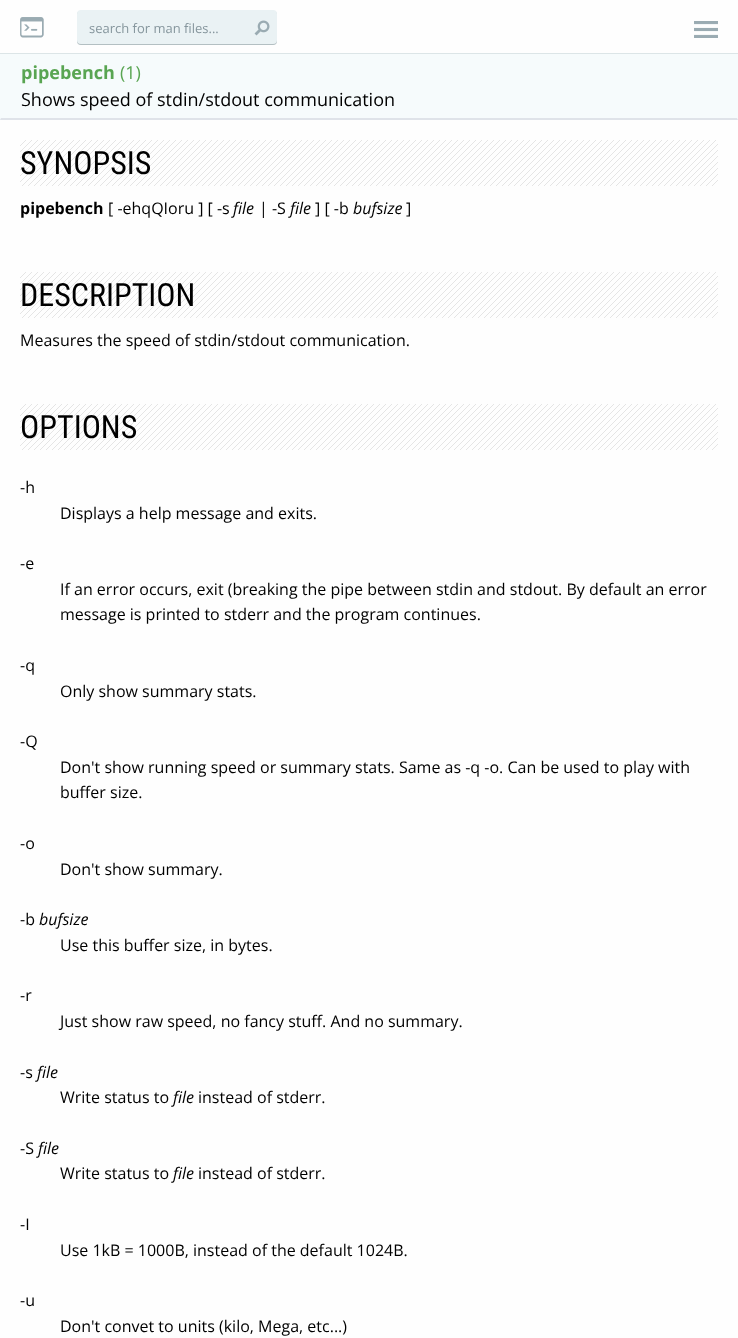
async function draw(canvas) {
  canvas.width = 738
  canvas.height = 1338
  const ctx = canvas.getContext('2d')
  ctx.miterLimit = 4
  ctx.fontKerning = 'normal'
  async function loadImage(src) {
    const img = new Image()
    img.src = src
    await img.decode()
    return img
  }

  ctx.fillStyle = '#fefefe'
  ctx.fillRect(0, 0, 738, 1338)
  ctx.fillStyle = '#dce5e7'
  ctx.fillRect(0, 53, 738, 1)
  ctx.drawImage(await loadImage('image0.png'), 20, 17, 24, 21)
  ctx.fillStyle = '#062f374d'
  ctx.filter = 'blur(0.5px)'
  ctx.beginPath()
  ctx.roundRect(77, 11, 200, 34, 4)
  ctx.fill()
  ctx.filter = 'none'
  ctx.fillStyle = '#eaf2f4'
  ctx.beginPath()
  ctx.roundRect(77, 10, 200, 34, 4)
  ctx.fill()
  ctx.font = '13px Open Sans'
  ctx.fillStyle = '#86969d'
  ctx.fillText('search for man files...', 89, 33)
  ctx.drawImage(await loadImage('image1.png'), 254, 20, 16, 16)
  ctx.drawImage(await loadImage('image2.png'), 694, 21, 24, 17)
  ctx.fillStyle = '#f6fbfc'
  ctx.fillRect(0, 54, 738, 66)
  ctx.fillStyle = '#dfe3e9'
  ctx.beginPath()
  ctx.moveTo(738, 120)
  ctx.lineTo(0, 120)
  ctx.lineTo(1, 118)
  ctx.lineTo(737, 118)
  ctx.closePath()
  ctx.fill()
  ctx.font = 'bold 18px Open Sans'
  ctx.fillStyle = '#59a552'
  ctx.fillText('pipebench', 21, 79)
  ctx.font = '18px Open Sans'
  ctx.fillText('(1)', 120, 79)
  ctx.fillStyle = '#000'
  ctx.fillText('Shows speed of stdin/stdout communication', 21, 106)
  ctx.drawImage(await loadImage('image3.png'), 20, 140, 698, 46)
  ctx.font = '32px Roboto Condensed'
  ctx.fillText('SYNOPSIS', 20, 174)
  ctx.font = 'bold 16px Open Sans'
  ctx.fillText('pipebench', 20, 214)
  ctx.font = '16px Open Sans'
  ctx.fillText('[ -ehqQIoru ] [ -s', 108, 214)
  ctx.font = 'italic 16px Open Sans'
  ctx.fillText('file', 233, 214)
  ctx.font = '16px Open Sans'
  ctx.fillText('| -S', 259, 214)
  ctx.font = 'italic 16px Open Sans'
  ctx.fillText('file', 290, 214)
  ctx.font = '16px Open Sans'
  ctx.fillText('] [ -b', 315, 214)
  ctx.font = 'italic 16px Open Sans'
  ctx.fillText('bufsize', 353, 214)
  ctx.font = '16px Open Sans'
  ctx.fillText(']', 406, 214)
  ctx.drawImage(await loadImage('image3.png'), 20, 272, 698, 46)
  ctx.font = '32px Roboto Condensed'
  ctx.fillText('DESCRIPTION', 20, 306)
  ctx.font = '16px Open Sans'
  ctx.fillText('Measures the speed of stdin/stdout communication.', 20, 346)
  ctx.drawImage(await loadImage('image3.png'), 20, 404, 698, 46)
  ctx.font = '32px Roboto Condensed'
  ctx.fillText('OPTIONS', 20, 438)
  ctx.font = '16px Open Sans'
  ctx.fillText('-h', 20, 493)
  ctx.fillText('Displays a help message and exits.', 60, 519)
  ctx.fillText('-e', 20, 569)
  ctx.fillText('If an error occurs, exit (breaking the pipe between stdin and stdout. By default an error', 60, 595)
  ctx.fillText('message is printed to stderr and the program continues.', 60, 620)
  ctx.fillText('-q', 20, 671)
  ctx.fillText('Only show summary stats.', 60, 697)
  ctx.fillText('-Q', 20, 747)
  ctx.fillText('Don\'t show running speed or summary stats. Same as -q -o. Can be used to play with', 60, 773)
  ctx.fillText('buffer size.', 60, 798)
  ctx.fillText('-o', 20, 849)
  ctx.fillText('Don\'t show summary.', 60, 875)
  ctx.fillText('-b', 20, 925)
  ctx.font = 'italic 16px Open Sans'
  ctx.fillText('bufsize', 39, 925)
  ctx.font = '16px Open Sans'
  ctx.fillText('Use this buffer size, in bytes.', 60, 951)
  ctx.fillText('-r', 20, 1001)
  ctx.fillText('Just show raw speed, no fancy stuff. And no summary.', 60, 1027)
  ctx.fillText('-s', 20, 1078)
  ctx.font = 'italic 16px Open Sans'
  ctx.fillText('file', 37, 1078)
  ctx.font = '16px Open Sans'
  ctx.fillText('Write status to', 60, 1103)
  ctx.font = 'italic 16px Open Sans'
  ctx.fillText('file', 173, 1103)
  ctx.font = '16px Open Sans'
  ctx.fillText('instead of stderr.', 198, 1103)
  ctx.fillText('-S', 20, 1154)
  ctx.font = 'italic 16px Open Sans'
  ctx.fillText('file', 38, 1154)
  ctx.font = '16px Open Sans'
  ctx.fillText('Write status to', 60, 1179)
  ctx.font = 'italic 16px Open Sans'
  ctx.fillText('file', 173, 1179)
  ctx.font = '16px Open Sans'
  ctx.fillText('instead of stderr.', 198, 1179)
  ctx.fillText('-I', 20, 1230)
  ctx.fillText('Use 1kB = 1000B, instead of the default 1024B.', 60, 1256)
  ctx.fillText('-u', 20, 1306)
  ctx.fillText('Don\'t convet to units (kilo, Mega, etc...)', 60, 1332)
}

draw(document.querySelector('canvas'))
